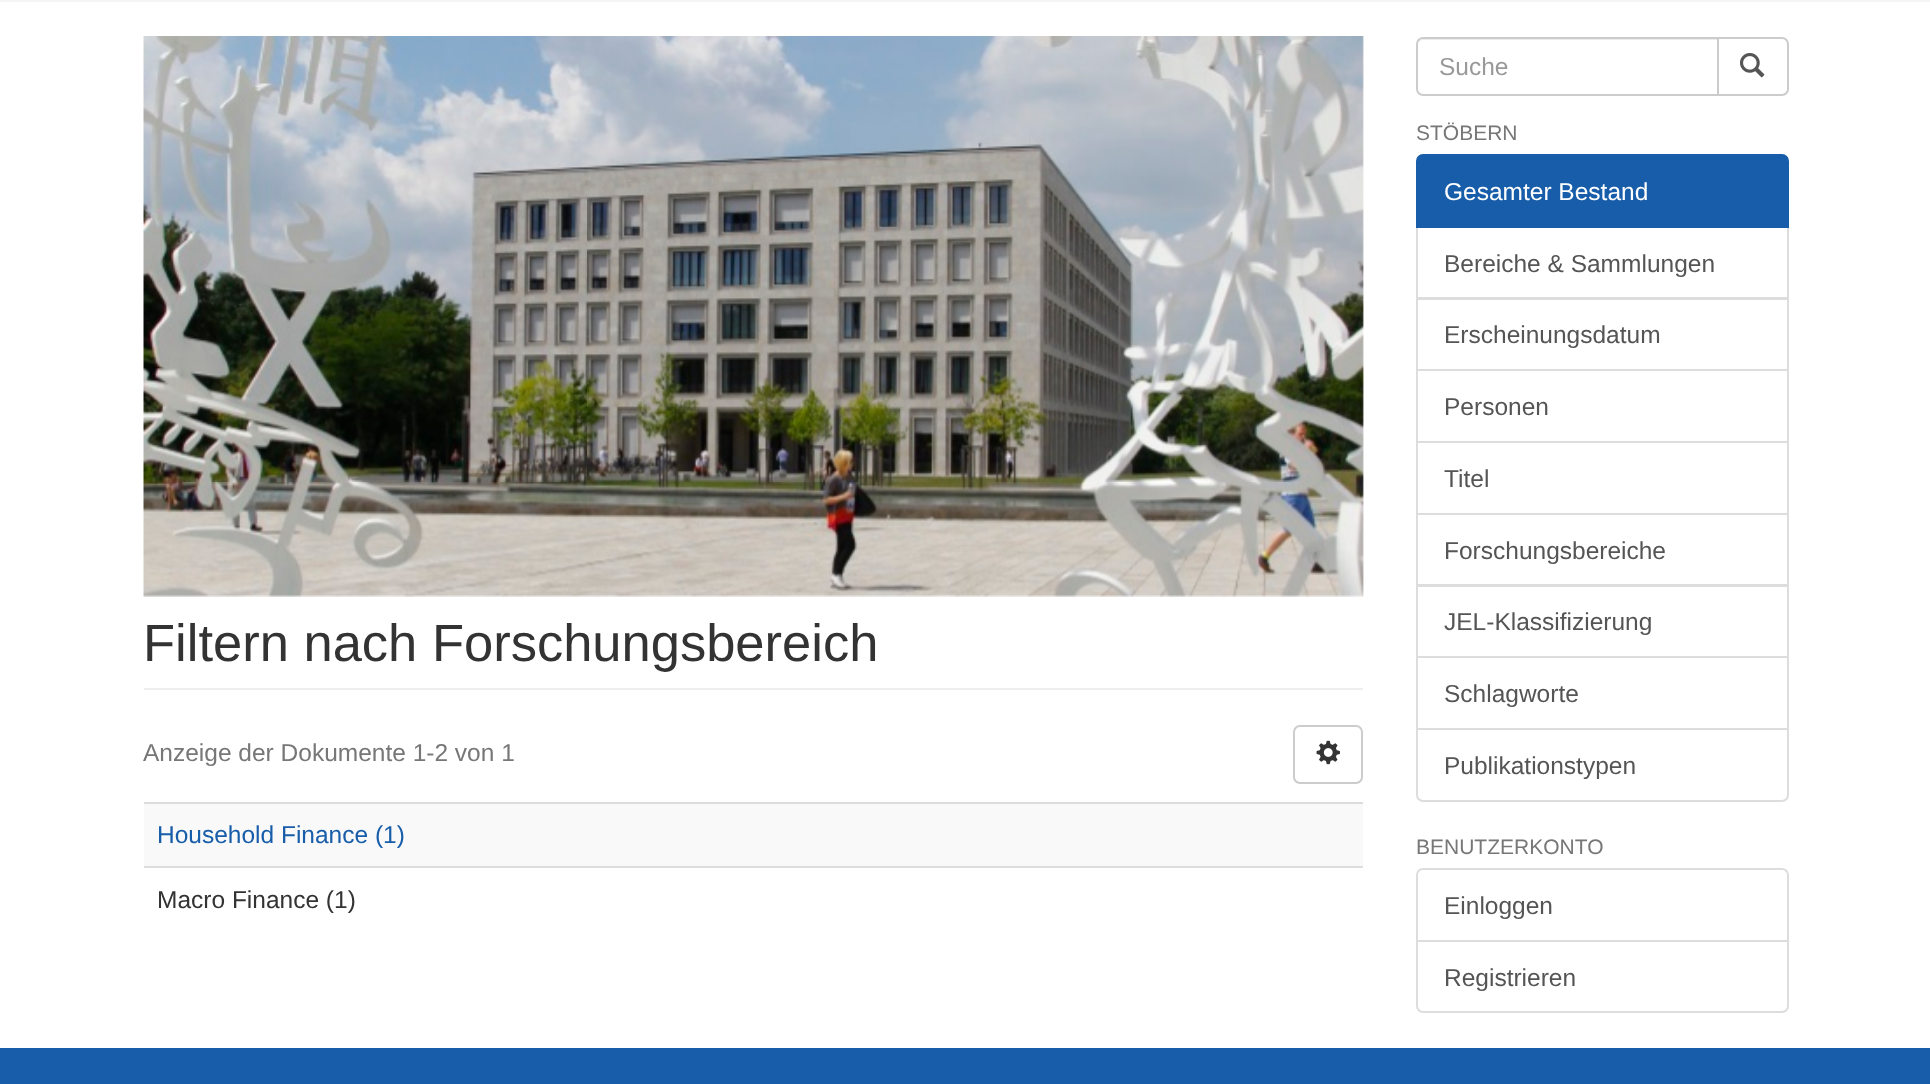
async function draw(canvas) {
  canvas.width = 1930
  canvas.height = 1084
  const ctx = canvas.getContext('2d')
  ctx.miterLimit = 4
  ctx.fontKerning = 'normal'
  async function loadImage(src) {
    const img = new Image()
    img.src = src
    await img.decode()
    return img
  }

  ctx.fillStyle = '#fff'
  ctx.fillRect(0, 0, 1930, 1084)
  ctx.fillStyle = '#f5f5f5'
  ctx.fillRect(0, 0, 1930, 2)
  ctx.drawImage(await loadImage('image0.png'), 143, 36, 1221, 561)
  ctx.fillStyle = '#eee'
  ctx.fillRect(144, 688, 1219, 2)
  ctx.font = '52.5px Liberation Sans'
  ctx.fillStyle = '#333'
  ctx.fillText('Filtern nach Forschungsbereich', 143, 661)
  ctx.font = '24.5px Liberation Sans'
  ctx.fillStyle = '#777'
  ctx.fillText('Anzeige der Dokumente 1-2 von 1', 143, 761)
  ctx.beginPath()
  ctx.roundRect(1294, 726, 68, 57, 6)
  ctx.strokeStyle = '#ccc'
  ctx.lineWidth = 2
  ctx.stroke()
  ctx.drawImage(await loadImage('image1.png'), 1316, 740, 24, 25)
  ctx.fillStyle = '#f9f9f9'
  ctx.fillRect(144, 804, 1219, 62)
  ctx.fillStyle = '#ddd'
  ctx.fillRect(144, 802, 1219, 2)
  ctx.fillStyle = '#185da9'
  ctx.fillText('Household Finance (1)', 157, 843)
  ctx.fillStyle = '#ddd'
  ctx.fillRect(144, 866, 1219, 2)
  ctx.fillStyle = '#333'
  ctx.fillText('Macro Finance (1)', 157, 908)
  ctx.beginPath()
  ctx.roundRect(1718, 38, 70, 57, [0, 6, 6, 0])
  ctx.stroke()
  ctx.fillStyle = '#fff'
  ctx.beginPath()
  ctx.roundRect(1416, 37, 303, 59, [7, 0, 0, 7])
  ctx.fill()
  ctx.fillStyle = '#ececec'
  ctx.beginPath()
  ctx.moveTo(1423, 40)
  ctx.lineTo(1717, 40)
  ctx.lineTo(1717, 39)
  ctx.lineTo(1423, 39)
  ctx.bezierCurveTo(1419, 39, 1418, 43, 1418, 46)
  ctx.bezierCurveTo(1418, 43, 1420, 40, 1423, 40)
  ctx.closePath()
  ctx.fill()
  ctx.beginPath()
  ctx.roundRect(1417, 38, 301, 57, [6, 0, 0, 6])
  ctx.stroke()
  ctx.fillStyle = '#999'
  ctx.fillText('Suche', 1439, 75)
  ctx.drawImage(await loadImage('image2.png'), 1740, 53, 25, 25)
  ctx.font = '21px Liberation Sans'
  ctx.fillStyle = '#777'
  ctx.fillText('STÖBERN', 1416, 140)
  ctx.strokeStyle = '#ddd'
  ctx.strokeRect(1417, 227, 371, 71)
  ctx.fillStyle = '#185da9'
  ctx.beginPath()
  ctx.roundRect(1417, 155, 371, 72, [6, 6, 0, 0])
  ctx.fill()
  ctx.strokeStyle = '#185da9'
  ctx.stroke()
  ctx.font = '24.5px Liberation Sans'
  ctx.fillStyle = '#fff'
  ctx.fillText('Gesamter Bestand', 1444, 200)
  ctx.fillStyle = '#555'
  ctx.fillText('Bereiche & Sammlungen', 1444, 272)
  ctx.strokeStyle = '#ddd'
  ctx.strokeRect(1417, 299, 371, 71)
  ctx.fillText('Erscheinungsdatum', 1444, 343)
  ctx.strokeRect(1417, 370, 371, 72)
  ctx.fillText('Personen', 1444, 415)
  ctx.strokeRect(1417, 442, 371, 72)
  ctx.fillText('Titel', 1444, 487)
  ctx.strokeRect(1417, 514, 371, 71)
  ctx.fillText('Forschungsbereiche', 1444, 559)
  ctx.strokeRect(1417, 586, 371, 71)
  ctx.fillText('JEL-Klassifizierung', 1444, 630)
  ctx.strokeRect(1417, 657, 371, 72)
  ctx.fillText('Schlagworte', 1444, 702)
  ctx.fillStyle = '#fff'
  ctx.beginPath()
  ctx.roundRect(1417, 729, 371, 72, [0, 0, 6, 6])
  ctx.fill()
  ctx.stroke()
  ctx.fillStyle = '#555'
  ctx.fillText('Publikationstypen', 1444, 774)
  ctx.font = '21px Liberation Sans'
  ctx.fillStyle = '#777'
  ctx.fillText('BENUTZERKONTO', 1416, 854)
  ctx.beginPath()
  ctx.roundRect(1417, 869, 371, 72, [6, 6, 0, 0])
  ctx.stroke()
  ctx.font = '24.5px Liberation Sans'
  ctx.fillStyle = '#555'
  ctx.fillText('Einloggen', 1444, 914)
  ctx.fillStyle = '#fff'
  ctx.beginPath()
  ctx.roundRect(1417, 941, 371, 71, [0, 0, 6, 6])
  ctx.fill()
  ctx.stroke()
  ctx.fillStyle = '#555'
  ctx.fillText('Registrieren', 1444, 986)
  ctx.fillStyle = '#185da9'
  ctx.fillRect(0, 1048, 1930, 36)
}

draw(document.querySelector('canvas'))
